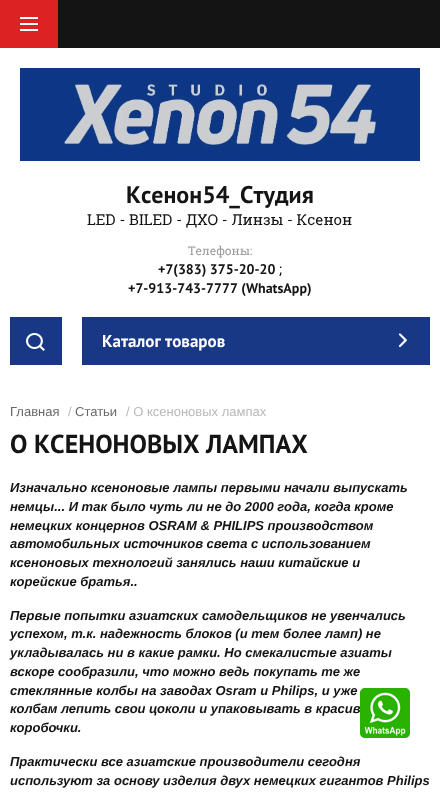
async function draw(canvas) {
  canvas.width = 440
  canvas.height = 793
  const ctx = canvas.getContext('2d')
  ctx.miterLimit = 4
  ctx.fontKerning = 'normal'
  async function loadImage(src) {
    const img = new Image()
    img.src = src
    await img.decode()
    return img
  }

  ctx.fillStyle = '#fff'
  ctx.fillRect(0, 0, 440, 793)
  ctx.fillStyle = '#141414'
  ctx.fillRect(58, 0, 382, 48)
  ctx.fillStyle = '#dc2222'
  ctx.fillRect(0, 0, 58, 48)
  ctx.drawImage(await loadImage('image0.png'), 20, 17, 18, 14)
  ctx.drawImage(await loadImage('image1.png'), 20, 68, 400, 93)
  ctx.font = 'bold 24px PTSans'
  ctx.fillStyle = '#141414'
  ctx.fillText('Ксенон54_Студия', 126, 203)
  ctx.font = '15px Roboto Slab'
  ctx.fillText('LED - BILED - ДХО - Линзы - Ксенон', 87, 225)
  ctx.font = '12px Roboto Slab'
  ctx.fillStyle = '#9c9c9c'
  ctx.fillText('Телефоны:', 188, 255)
  ctx.font = 'bold 14px PTSans'
  ctx.fillStyle = '#141414'
  ctx.fillText('+7(383) 375-20-20', 158, 274)
  ctx.font = '14px Roboto Slab'
  ctx.fillText(';', 279, 274)
  ctx.font = 'bold 14px PTSans'
  ctx.fillText('+7-913-743-7777 (WhatsApp)', 128, 293)
  ctx.fillStyle = '#183785'
  ctx.fillRect(10, 317, 52, 48)
  ctx.drawImage(await loadImage('image2.png'), 26, 333, 19, 18)
  ctx.fillRect(82, 317, 348, 48)
  ctx.font = 'bold 17px PTSans'
  ctx.fillStyle = '#fff'
  ctx.fillText('Каталог товаров', 102, 347)
  ctx.drawImage(await loadImage('image3.png'), 399, 333, 8, 14)
  ctx.font = '13px Liberation Sans'
  ctx.fillStyle = '#676767'
  ctx.fillText('Главная', 10, 416)
  ctx.fillStyle = '#b8b8b8'
  ctx.fillText('/', 68, 416)
  ctx.fillStyle = '#676767'
  ctx.fillText('Статьи', 75, 416)
  ctx.fillStyle = '#b8b8b8'
  ctx.fillText('/ О ксеноновых лампах', 126, 416)
  ctx.font = 'bold 26px PTSans'
  ctx.fillStyle = '#141414'
  ctx.fillText('О КСЕНОНОВЫХ ЛАМПАХ', 10, 453)
  ctx.font = 'italic bold 13px Liberation Sans'
  ctx.fillText('Изначально ксеноновые лампы первыми начали выпускать', 10, 492)
  ctx.fillText('немцы... И так было чуть ли не до 2000 года, когда кроме', 10, 511)
  ctx.fillText('немецких концернов OSRAM & PHILIPS производством', 10, 530)
  ctx.fillText('автомобильных источников света с использованием', 10, 548)
  ctx.fillText('ксеноновых технологий занялись наши китайские и', 10, 567)
  ctx.fillText('корейские братья..', 10, 586)
  ctx.fillText('Первые попытки азиатских самодельщиков не увенчались', 10, 620)
  ctx.fillText('успехом, т.к. надежность блоков (и тем более ламп) не', 10, 638)
  ctx.fillText('укладывалась ни в какие рамки. Но смекалистые азиаты', 10, 657)
  ctx.fillText('вскоре сообразили, что можно ведь покупать те же', 10, 676)
  ctx.fillText('стеклянные колбы на заводах Osram и Philips, и уже', 10, 695)
  ctx.fillText('колбам лепить свои цоколи и упаковывать в красив', 10, 713)
  ctx.fillText('коробочки.', 10, 732)
  ctx.fillText('Практически все азиатские производители сегодня', 10, 766)
  ctx.fillText('используют за основу изделия двух немецких гигантов Philips', 10, 785)
  ctx.drawImage(await loadImage('image4.png'), 360, 688, 50, 50)
}

draw(document.querySelector('canvas'))
